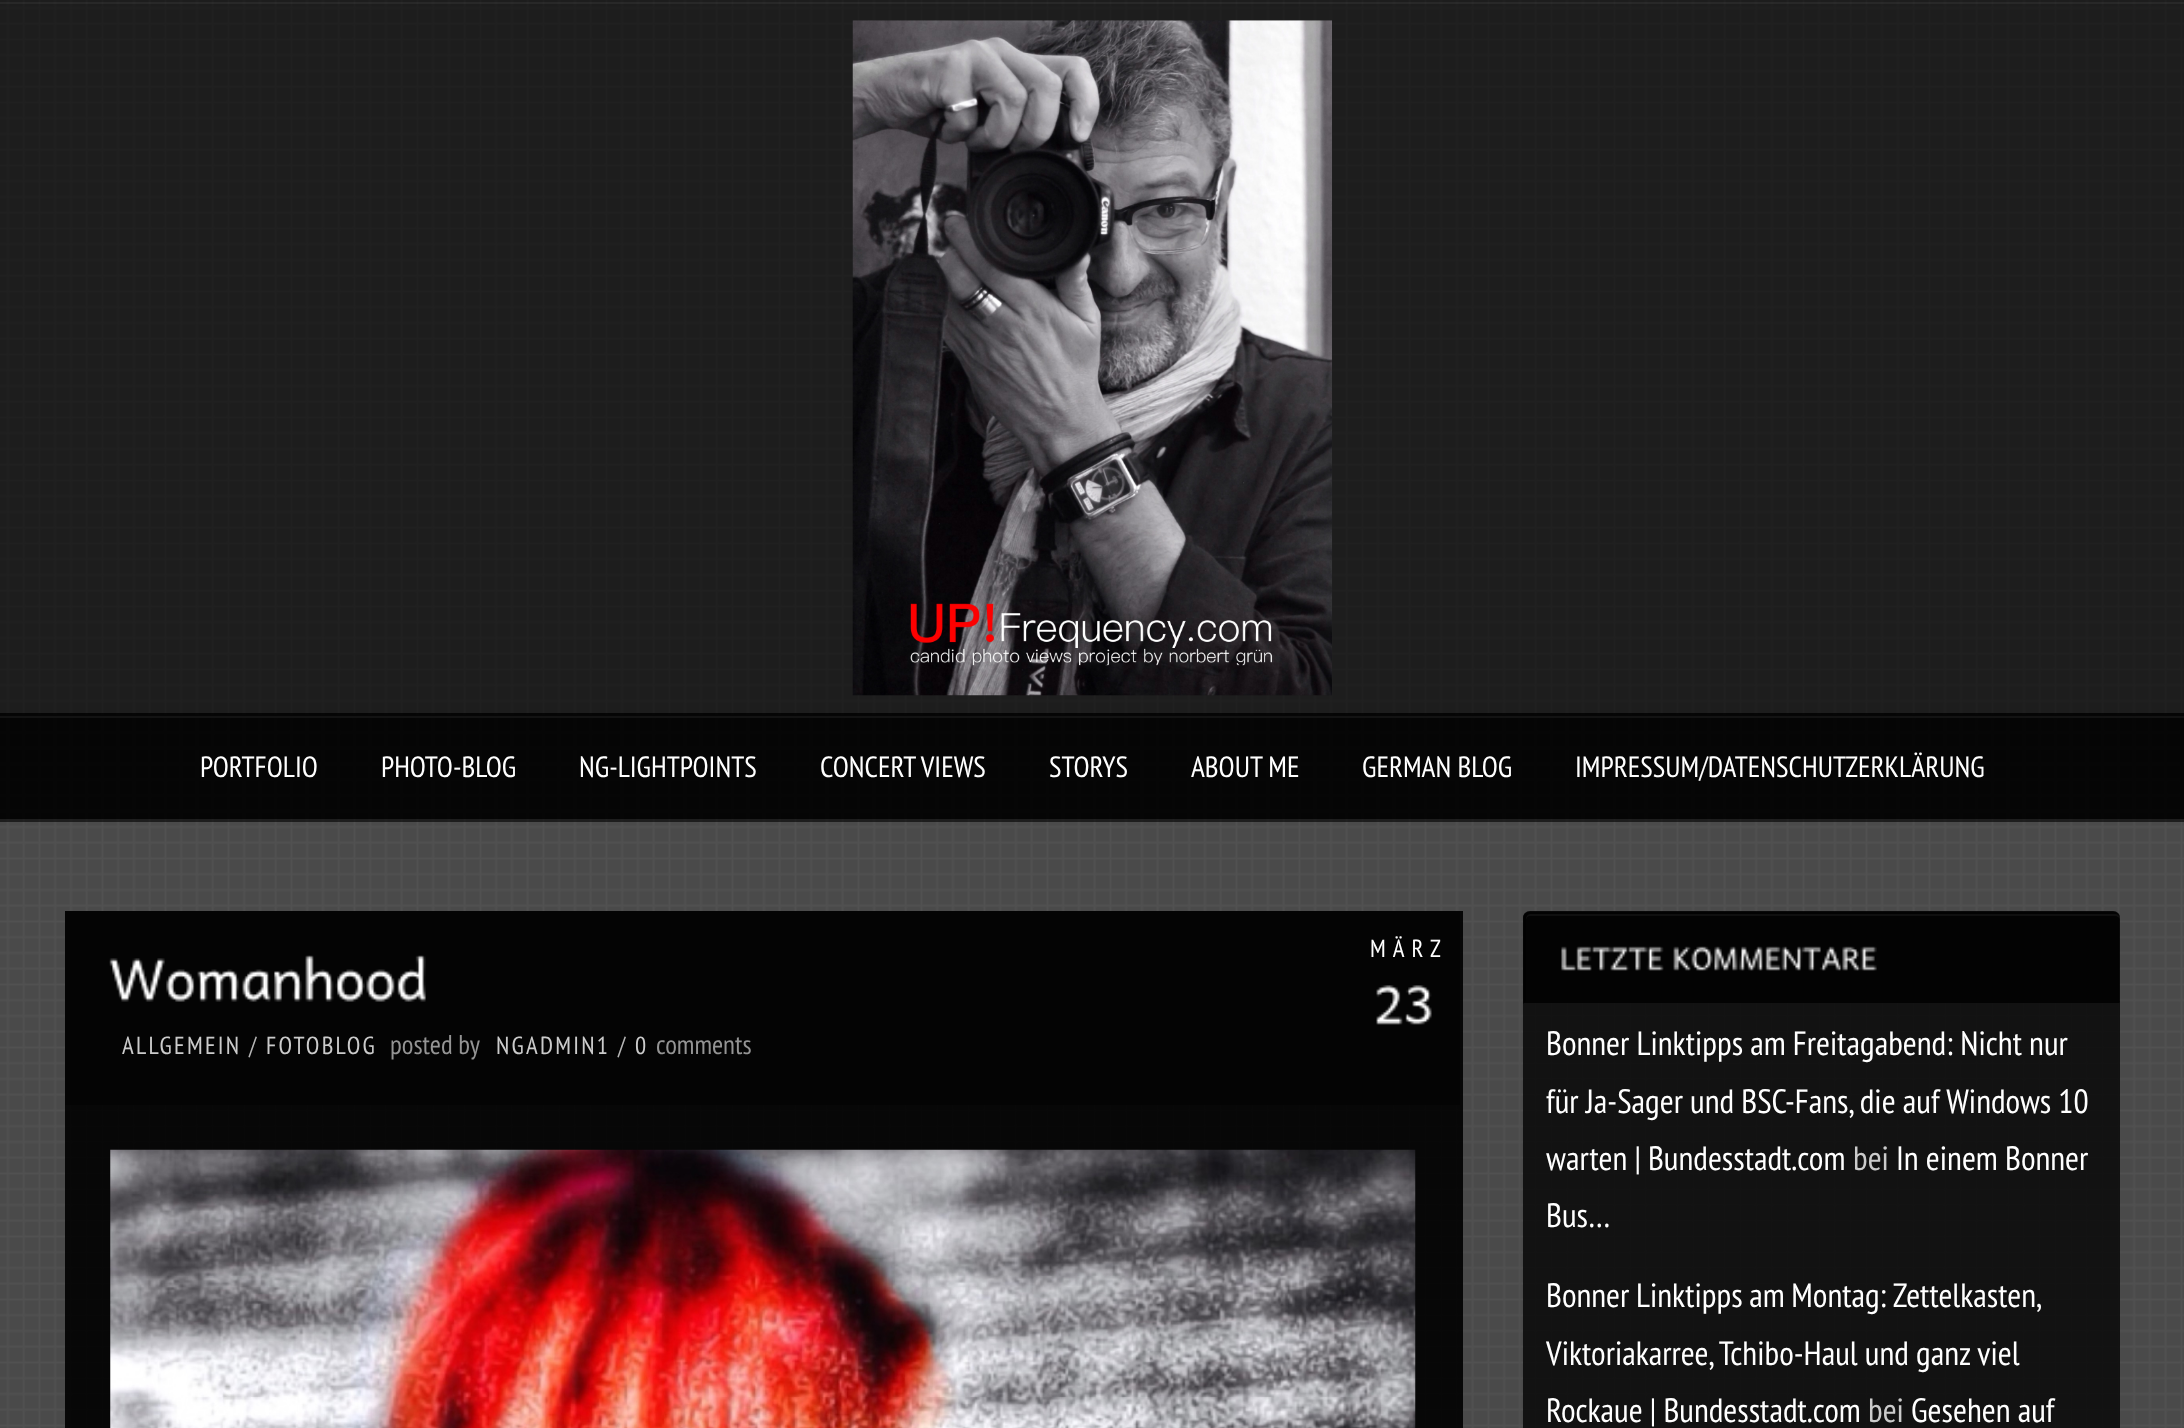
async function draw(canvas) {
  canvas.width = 2184
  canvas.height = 1428
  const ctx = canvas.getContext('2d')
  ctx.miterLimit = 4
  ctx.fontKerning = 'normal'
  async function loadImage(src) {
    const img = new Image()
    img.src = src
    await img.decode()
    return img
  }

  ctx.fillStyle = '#4a4a4a'
  ctx.fillRect(0, 0, 2184, 1428)
  ctx.drawImage(await loadImage('image0.png'), 0, 0, 2184, 1428)
  ctx.fillStyle = '#00000099'
  ctx.fillRect(0, 0, 2184, 822)
  ctx.fillStyle = '#ffffff0d'
  ctx.fillRect(0, 2, 2184, 2)
  ctx.drawImage(await loadImage('image1.png'), 852, 20, 480, 676)
  ctx.fillStyle = '#000000cc'
  ctx.fillRect(0, 713, 2184, 106)
  ctx.fillStyle = '#131313'
  ctx.fillRect(0, 716, 2184, 2)
  ctx.font = '29.25px PT Sans Narrow'
  ctx.fillStyle = '#fff'
  ctx.fillText('PORTFOLIO', 200, 777)
  ctx.fillText('PHOTO-BLOG', 381, 777)
  ctx.fillText('NG-LIGHTPOINTS', 579, 777)
  ctx.fillText('CONCERT VIEWS', 820, 777)
  ctx.fillText('STORYS', 1049, 777)
  ctx.fillText('ABOUT ME', 1191, 777)
  ctx.fillText('GERMAN BLOG', 1362, 777)
  ctx.fillText('IMPRESSUM/DATENSCHUTZERKLÄRUNG', 1575, 777)
  ctx.fillStyle = '#000000e6'
  ctx.fillRect(65, 911, 1398, 517)
  ctx.fillStyle = '#040404'
  ctx.fillRect(65, 911, 1395, 194)
  ctx.letterSpacing = '7px'
  ctx.font = '24.75px PT Sans Narrow'
  ctx.fillStyle = '#fff'
  ctx.fillText('MÄRZ', 1370, 957)
  ctx.drawImage(await loadImage('image2.png'), 1376, 985, 56, 40)
  ctx.drawImage(await loadImage('image3.png'), 109, 955, 317, 47)
  ctx.letterSpacing = '2.25px'
  ctx.fillStyle = '#cbcbcb'
  ctx.fillText('ALLGEMEIN', 122, 1054)
  ctx.fillStyle = '#b5b5b5'
  ctx.fillText('/', 249, 1054)
  ctx.fillStyle = '#cbcbcb'
  ctx.fillText('FOTOBLOG', 266, 1054)
  ctx.letterSpacing = '0px'
  ctx.font = '27px PT Sans Narrow'
  ctx.fillStyle = '#949494'
  ctx.fillText('posted by', 390, 1054)
  ctx.letterSpacing = '2.25px'
  ctx.font = '24.75px PT Sans Narrow'
  ctx.fillStyle = '#cbcbcb'
  ctx.fillText('NGADMIN1', 496, 1054)
  ctx.fillStyle = '#b5b5b5'
  ctx.fillText('/', 618, 1054)
  ctx.fillStyle = '#cbcbcb'
  ctx.fillText('0', 635, 1054)
  ctx.letterSpacing = '0px'
  ctx.font = '27px PT Sans Narrow'
  ctx.fillStyle = '#949494'
  ctx.fillText('comments', 656, 1054)
  ctx.drawImage(await loadImage('image4.png'), 110, 1149, 1306, 279)
  ctx.fillStyle = '#0c0c0ce6'
  ctx.beginPath()
  ctx.moveTo(1530, 911)
  ctx.lineTo(2113, 911)
  ctx.bezierCurveTo(2117, 911, 2120, 914, 2120, 918)
  ctx.lineTo(2120, 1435)
  ctx.lineTo(1523, 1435)
  ctx.lineTo(1523, 918)
  ctx.bezierCurveTo(1523, 914, 1526, 911, 1530, 911)
  ctx.closePath()
  ctx.fill()
  ctx.drawImage(await loadImage('image5.png'), 1523, 911, 597, 92)
  ctx.fillStyle = '#ffffff0d'
  ctx.beginPath()
  ctx.moveTo(1530, 916)
  ctx.lineTo(2115, 916)
  ctx.bezierCurveTo(2117, 916, 2120, 918, 2120, 920)
  ctx.lineTo(2120, 919)
  ctx.bezierCurveTo(2120, 916, 2118, 914, 2115, 914)
  ctx.lineTo(1531, 914)
  ctx.bezierCurveTo(1528, 914, 1526, 916, 1526, 919)
  ctx.lineTo(1526, 920)
  ctx.bezierCurveTo(1526, 918, 1528, 916, 1530, 916)
  ctx.closePath()
  ctx.fill()
  ctx.fillStyle = '#0000001a'
  ctx.beginPath()
  ctx.moveTo(2115, 911)
  ctx.lineTo(1528, 911)
  ctx.lineTo(1525, 913)
  ctx.lineTo(1527, 915)
  ctx.lineTo(1530, 914)
  ctx.lineTo(2115, 914)
  ctx.lineTo(2118, 915)
  ctx.lineTo(2119, 914)
  ctx.bezierCurveTo(2118, 913, 2117, 912, 2115, 911)
  ctx.closePath()
  ctx.fill()
  ctx.fillStyle = '#00000099'
  ctx.beginPath()
  ctx.moveTo(2119, 914)
  ctx.lineTo(2118, 915)
  ctx.bezierCurveTo(2119, 916, 2120, 917, 2120, 918)
  ctx.closePath()
  ctx.moveTo(2119, 1001)
  ctx.lineTo(2120, 1002)
  ctx.lineTo(2120, 1001)
  ctx.closePath()
  ctx.fill('evenodd')
  ctx.beginPath()
  ctx.moveTo(1523, 1004)
  ctx.lineTo(1526, 1001)
  ctx.lineTo(1526, 918)
  ctx.lineTo(1527, 915)
  ctx.lineTo(1525, 913)
  ctx.lineTo(1523, 916)
  ctx.closePath()
  ctx.fill()
  ctx.drawImage(await loadImage('image6.png'), 1561, 946, 103, 25)
  ctx.drawImage(await loadImage('image7.png'), 1673, 946, 204, 25)
  ctx.font = '33.75px PT Sans Narrow'
  ctx.fillStyle = '#fff'
  ctx.fillText('Bonner Linktipps am Freitagabend: Nicht nur', 1546, 1055)
  ctx.fillText('für Ja-Sager und BSC-Fans, die auf Windows 10', 1546, 1113)
  ctx.fillText('warten | Bundesstadt.com', 1546, 1170)
  ctx.fillStyle = '#cbcbcb'
  ctx.fillText('bei', 1853, 1170)
  ctx.fillStyle = '#fff'
  ctx.fillText('In einem Bonner', 1896, 1170)
  ctx.fillText('Bus…', 1546, 1227)
  ctx.wordSpacing = '-0.5px'
  ctx.fillText('Bonner Linktipps am Montag: Zettelkasten,', 1546, 1307)
  ctx.wordSpacing = '0px'
  ctx.fillText('Viktoriakarree, Tchibo-Haul und ganz viel', 1546, 1365)
  ctx.fillText('Rockaue | Bundesstadt.com', 1546, 1422)
  ctx.fillStyle = '#cbcbcb'
  ctx.fillText('bei', 1868, 1422)
  ctx.fillStyle = '#fff'
  ctx.fillText('Gesehen auf', 1911, 1422)
}

draw(document.querySelector('canvas'))
